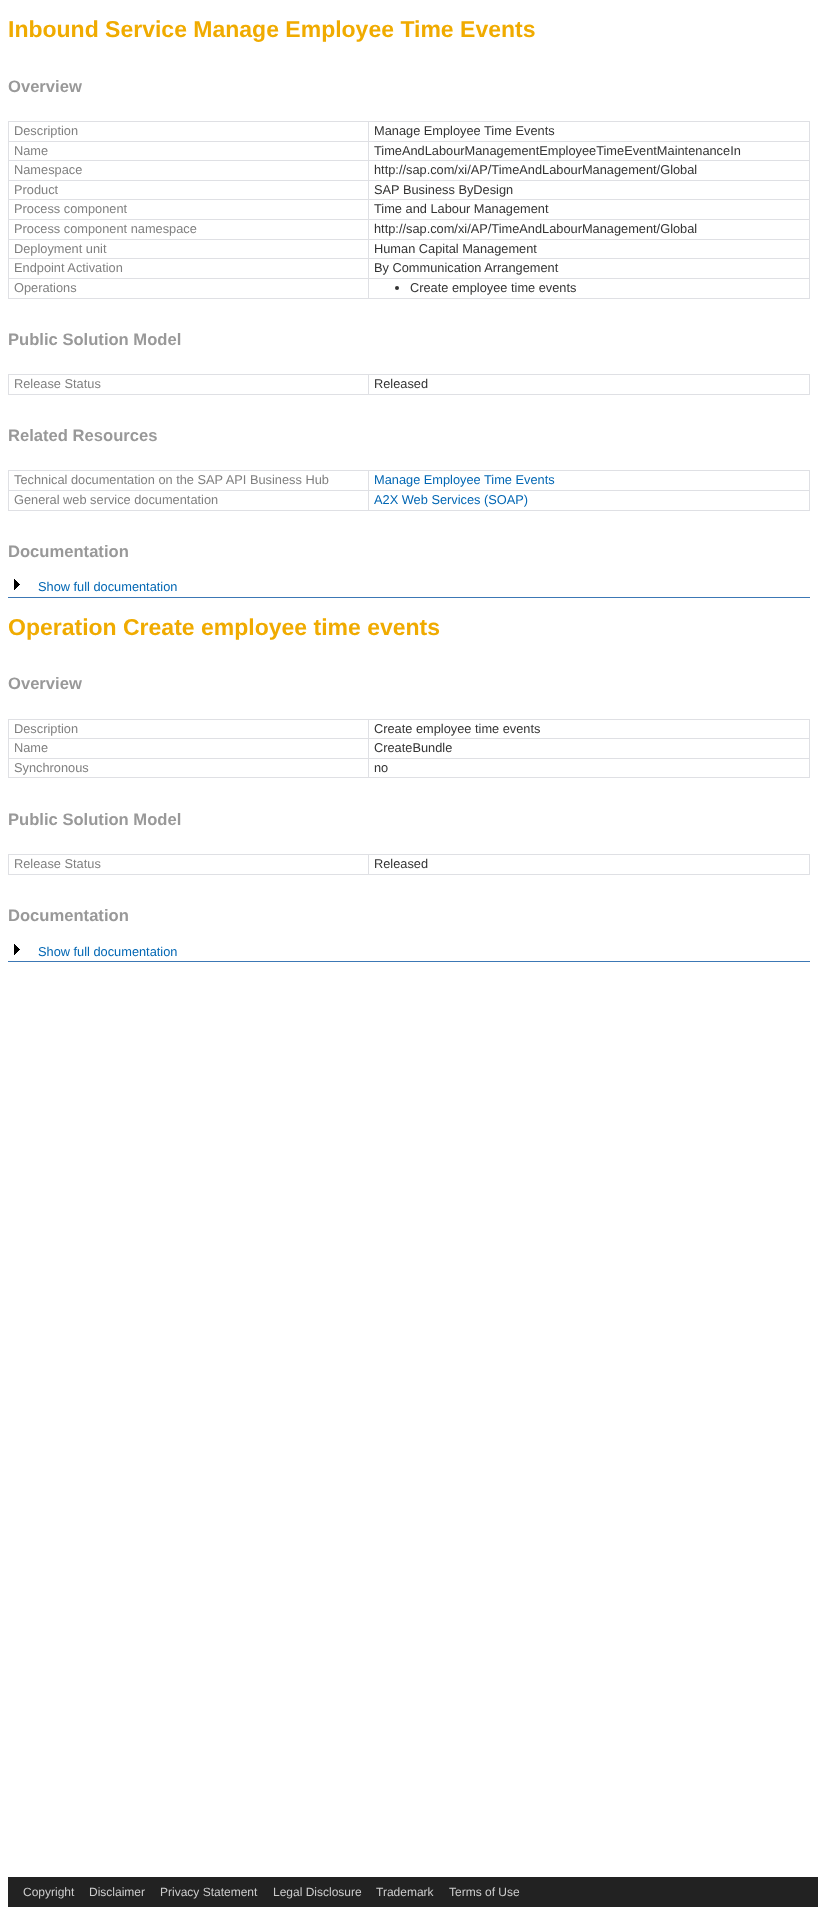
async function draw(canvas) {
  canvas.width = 818
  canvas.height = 1907
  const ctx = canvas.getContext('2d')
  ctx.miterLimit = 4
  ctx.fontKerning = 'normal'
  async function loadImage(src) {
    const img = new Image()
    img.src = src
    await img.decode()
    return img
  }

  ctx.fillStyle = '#fff'
  ctx.fillRect(0, 0, 818, 1907)
  ctx.font = 'bold 23px Liberation Sans'
  ctx.fillStyle = '#f0ab00'
  ctx.fillText('Inbound Service Manage Employee Time Events', 8, 37)
  ctx.font = 'bold 16.6px Liberation Sans'
  ctx.fillStyle = '#999'
  ctx.fillText('Overview', 8, 92)
  ctx.fillStyle = '#dfe0e4'
  ctx.fillRect(368, 121, 442, 1)
  ctx.fillRect(368, 141, 442, 1)
  ctx.fillRect(368, 160, 442, 1)
  ctx.fillRect(368, 180, 442, 1)
  ctx.fillRect(368, 199, 442, 1)
  ctx.fillRect(368, 219, 442, 1)
  ctx.fillRect(368, 239, 442, 1)
  ctx.fillRect(368, 258, 442, 1)
  ctx.fillRect(368, 278, 442, 1)
  ctx.fillRect(809, 278, 1, 21)
  ctx.fillRect(368, 298, 442, 1)
  ctx.fillRect(368, 278, 1, 21)
  ctx.fillRect(8, 278, 361, 1)
  ctx.fillRect(368, 258, 1, 21)
  ctx.fillRect(8, 258, 361, 1)
  ctx.fillRect(368, 239, 1, 20)
  ctx.fillRect(8, 239, 361, 1)
  ctx.fillRect(368, 219, 1, 21)
  ctx.fillRect(8, 219, 361, 1)
  ctx.fillRect(368, 199, 1, 21)
  ctx.fillRect(8, 199, 361, 1)
  ctx.fillRect(368, 180, 1, 20)
  ctx.fillRect(8, 180, 361, 1)
  ctx.fillRect(368, 160, 1, 21)
  ctx.fillRect(8, 160, 361, 1)
  ctx.fillRect(368, 141, 1, 20)
  ctx.fillRect(8, 141, 361, 1)
  ctx.fillRect(368, 121, 1, 21)
  ctx.fillRect(8, 121, 361, 1)
  ctx.fillRect(8, 298, 361, 1)
  ctx.fillRect(8, 278, 1, 21)
  ctx.fillRect(8, 258, 1, 21)
  ctx.fillRect(8, 239, 1, 20)
  ctx.fillRect(8, 219, 1, 21)
  ctx.fillRect(8, 199, 1, 21)
  ctx.fillRect(8, 180, 1, 20)
  ctx.fillRect(8, 160, 1, 21)
  ctx.fillRect(8, 141, 1, 20)
  ctx.fillRect(8, 121, 1, 21)
  ctx.font = '12.8px Liberation Sans'
  ctx.fillStyle = '#808080'
  ctx.fillText('Description', 14, 135)
  ctx.fillStyle = '#dfe0e4'
  ctx.fillRect(809, 258, 1, 21)
  ctx.fillRect(809, 239, 1, 20)
  ctx.fillRect(809, 219, 1, 21)
  ctx.fillRect(809, 199, 1, 21)
  ctx.fillRect(809, 180, 1, 20)
  ctx.fillRect(809, 160, 1, 21)
  ctx.fillRect(809, 141, 1, 20)
  ctx.fillRect(809, 121, 1, 21)
  ctx.fillStyle = '#333'
  ctx.fillText('Manage Employee Time Events', 374, 135)
  ctx.fillStyle = '#808080'
  ctx.fillText('Name', 14, 155)
  ctx.fillStyle = '#333'
  ctx.fillText('TimeAndLabourManagementEmployeeTimeEventMaintenanceIn', 374, 155)
  ctx.fillStyle = '#808080'
  ctx.fillText('Namespace', 14, 174)
  ctx.fillStyle = '#333'
  ctx.fillText('http://sap.com/xi/AP/TimeAndLabourManagement/Global', 374, 174)
  ctx.fillStyle = '#808080'
  ctx.fillText('Product', 14, 194)
  ctx.fillStyle = '#333'
  ctx.fillText('SAP Business ByDesign', 374, 194)
  ctx.fillStyle = '#808080'
  ctx.fillText('Process component', 14, 213)
  ctx.fillStyle = '#333'
  ctx.fillText('Time and Labour Management', 374, 213)
  ctx.fillStyle = '#808080'
  ctx.fillText('Process component namespace', 14, 233)
  ctx.fillStyle = '#333'
  ctx.fillText('http://sap.com/xi/AP/TimeAndLabourManagement/Global', 374, 233)
  ctx.fillStyle = '#808080'
  ctx.fillText('Deployment unit', 14, 253)
  ctx.fillStyle = '#333'
  ctx.fillText('Human Capital Management', 374, 253)
  ctx.fillStyle = '#808080'
  ctx.fillText('Endpoint Activation', 14, 272)
  ctx.fillStyle = '#333'
  ctx.fillText('By Communication Arrangement', 374, 272)
  ctx.fillStyle = '#808080'
  ctx.fillText('Operations', 14, 292)
  ctx.fillStyle = '#333'
  ctx.beginPath()
  ctx.arc(397, 288, 2, 0, 2 * Math.PI)
  ctx.fill()
  ctx.fillText('Create employee time events', 410, 292)
  ctx.font = 'bold 16.6px Liberation Sans'
  ctx.fillStyle = '#999'
  ctx.fillText('Public Solution Model', 8, 345)
  ctx.fillStyle = '#dfe0e4'
  ctx.fillRect(368, 374, 442, 1)
  ctx.fillRect(809, 374, 1, 21)
  ctx.fillRect(368, 394, 442, 1)
  ctx.fillRect(368, 374, 1, 21)
  ctx.fillRect(8, 374, 361, 1)
  ctx.fillRect(8, 394, 361, 1)
  ctx.fillRect(8, 374, 1, 21)
  ctx.font = '12.8px Liberation Sans'
  ctx.fillStyle = '#808080'
  ctx.fillText('Release Status', 14, 388)
  ctx.fillStyle = '#333'
  ctx.fillText('Released', 374, 388)
  ctx.font = 'bold 16.6px Liberation Sans'
  ctx.fillStyle = '#999'
  ctx.fillText('Related Resources', 8, 441)
  ctx.fillStyle = '#dfe0e4'
  ctx.fillRect(368, 470, 442, 1)
  ctx.fillRect(368, 490, 442, 1)
  ctx.fillRect(809, 490, 1, 21)
  ctx.fillRect(368, 510, 442, 1)
  ctx.fillRect(368, 490, 1, 21)
  ctx.fillRect(8, 490, 361, 1)
  ctx.fillRect(368, 470, 1, 21)
  ctx.fillRect(8, 470, 361, 1)
  ctx.fillRect(8, 510, 361, 1)
  ctx.fillRect(8, 490, 1, 21)
  ctx.fillRect(8, 470, 1, 21)
  ctx.font = '12.8px Liberation Sans'
  ctx.fillStyle = '#808080'
  ctx.fillText('Technical documentation on the SAP API Business Hub', 14, 484)
  ctx.fillStyle = '#dfe0e4'
  ctx.fillRect(809, 470, 1, 21)
  ctx.fillStyle = '#0066b3'
  ctx.fillText('Manage Employee Time Events', 374, 484)
  ctx.fillStyle = '#808080'
  ctx.fillText('General web service documentation', 14, 504)
  ctx.fillStyle = '#0066b3'
  ctx.fillText('A2X Web Services (SOAP)', 374, 504)
  ctx.font = 'bold 16.6px Liberation Sans'
  ctx.fillStyle = '#999'
  ctx.fillText('Documentation', 8, 557)
  ctx.fillStyle = '#3c78b5'
  ctx.fillRect(8, 597, 802, 1)
  ctx.drawImage(await loadImage('image0.png'), 14, 579, 6, 11)
  ctx.font = '12.8px Liberation Sans'
  ctx.fillStyle = '#0066b3'
  ctx.fillText('Show full documentation', 38, 591)
  ctx.font = 'bold 23px Liberation Sans'
  ctx.fillStyle = '#f0ab00'
  ctx.fillText('Operation Create employee time events', 8, 635)
  ctx.font = 'bold 16.6px Liberation Sans'
  ctx.fillStyle = '#999'
  ctx.fillText('Overview', 8, 689)
  ctx.fillStyle = '#dfe0e4'
  ctx.fillRect(368, 719, 442, 1)
  ctx.fillRect(368, 738, 442, 1)
  ctx.fillRect(368, 758, 442, 1)
  ctx.fillRect(809, 758, 1, 20)
  ctx.fillRect(368, 777, 442, 1)
  ctx.fillRect(368, 758, 1, 20)
  ctx.fillRect(8, 758, 361, 1)
  ctx.fillRect(368, 738, 1, 21)
  ctx.fillRect(8, 738, 361, 1)
  ctx.fillRect(368, 719, 1, 20)
  ctx.fillRect(8, 719, 361, 1)
  ctx.fillRect(8, 777, 361, 1)
  ctx.fillRect(8, 758, 1, 20)
  ctx.fillRect(8, 738, 1, 21)
  ctx.fillRect(8, 719, 1, 20)
  ctx.font = '12.8px Liberation Sans'
  ctx.fillStyle = '#808080'
  ctx.fillText('Description', 14, 733)
  ctx.fillStyle = '#dfe0e4'
  ctx.fillRect(809, 738, 1, 21)
  ctx.fillRect(809, 719, 1, 20)
  ctx.fillStyle = '#333'
  ctx.fillText('Create employee time events', 374, 733)
  ctx.fillStyle = '#808080'
  ctx.fillText('Name', 14, 752)
  ctx.fillStyle = '#333'
  ctx.fillText('CreateBundle', 374, 752)
  ctx.fillStyle = '#808080'
  ctx.fillText('Synchronous', 14, 772)
  ctx.fillStyle = '#333'
  ctx.fillText('no', 374, 772)
  ctx.font = 'bold 16.6px Liberation Sans'
  ctx.fillStyle = '#999'
  ctx.fillText('Public Solution Model', 8, 825)
  ctx.fillStyle = '#dfe0e4'
  ctx.fillRect(368, 854, 442, 1)
  ctx.fillRect(809, 854, 1, 21)
  ctx.fillRect(368, 874, 442, 1)
  ctx.fillRect(368, 854, 1, 21)
  ctx.fillRect(8, 854, 361, 1)
  ctx.fillRect(8, 874, 361, 1)
  ctx.fillRect(8, 854, 1, 21)
  ctx.font = '12.8px Liberation Sans'
  ctx.fillStyle = '#808080'
  ctx.fillText('Release Status', 14, 868)
  ctx.fillStyle = '#333'
  ctx.fillText('Released', 374, 868)
  ctx.font = 'bold 16.6px Liberation Sans'
  ctx.fillStyle = '#999'
  ctx.fillText('Documentation', 8, 921)
  ctx.fillStyle = '#3c78b5'
  ctx.fillRect(8, 961, 802, 1)
  ctx.drawImage(await loadImage('image0.png'), 14, 944, 6, 11)
  ctx.font = '12.8px Liberation Sans'
  ctx.fillStyle = '#0066b3'
  ctx.fillText('Show full documentation', 38, 956)
  ctx.fillStyle = '#222'
  ctx.fillRect(8, 1877, 810, 30)
  ctx.font = '12px Liberation Sans'
  ctx.fillStyle = '#ccc'
  ctx.fillText('Copyright', 23, 1896)
  ctx.fillText('Disclaimer', 89, 1896)
  ctx.fillText('Privacy Statement', 160, 1896)
  ctx.fillText('Legal Disclosure', 273, 1896)
  ctx.fillText('Trademark', 376, 1896)
  ctx.fillText('Terms of Use', 449, 1896)
}

draw(document.querySelector('canvas'))
